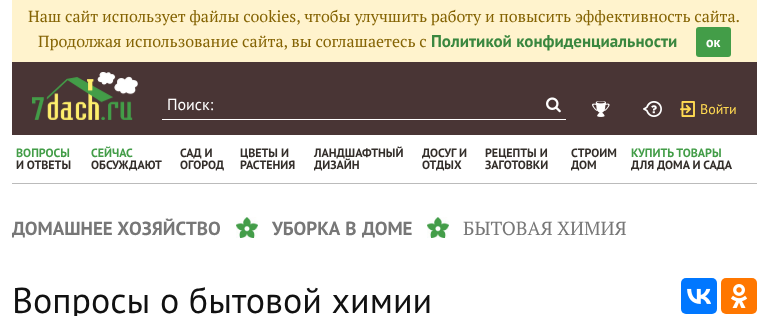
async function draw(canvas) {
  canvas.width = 769
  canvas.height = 316
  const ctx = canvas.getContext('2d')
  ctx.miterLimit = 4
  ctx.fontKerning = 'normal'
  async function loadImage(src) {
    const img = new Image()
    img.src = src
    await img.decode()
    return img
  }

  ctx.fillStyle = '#fff'
  ctx.fillRect(0, 0, 769, 316)
  ctx.fillStyle = '#fff3cd'
  ctx.fillRect(12, 0, 745, 62)
  ctx.wordSpacing = '0.1px'
  ctx.font = '16px PT Serif'
  ctx.fillStyle = '#856404'
  ctx.fillText('Наш сайт использует файлы cookies, чтобы улучшить работу и повысить эффективность сайта.', 28, 22)
  ctx.wordSpacing = '0px'
  ctx.fillText('Продолжая использование сайта, вы соглашаетесь с', 38, 47)
  ctx.font = 'bold 17px PT Sans'
  ctx.fillStyle = '#3a873f'
  ctx.fillText('Политикой конфиденциальности', 431, 47)
  ctx.fillStyle = '#439d48'
  ctx.beginPath()
  ctx.roundRect(696, 27, 35, 30, 3)
  ctx.fill()
  ctx.font = 'bold 14px PT Sans'
  ctx.fillStyle = '#fff'
  ctx.fillText('ок', 706, 47)
  ctx.fillStyle = '#493535'
  ctx.fillRect(12, 62, 745, 73)
  ctx.drawImage(await loadImage('image0.png'), 32, 72, 106, 48)
  ctx.fillStyle = '#fff'
  ctx.fillRect(162, 119, 404, 1)
  ctx.font = '16px PT Sans'
  ctx.fillText('Поиск:', 167, 110)
  ctx.drawImage(await loadImage('image1.png'), 546, 97, 15, 16)
  ctx.drawImage(await loadImage('image2.png'), 592, 101, 18, 16)
  ctx.drawImage(await loadImage('image3.png'), 643, 101, 19, 16)
  ctx.drawImage(await loadImage('image4.png'), 680, 101, 15, 16)
  ctx.font = '14px PT Sans'
  ctx.fillStyle = '#ffda52'
  ctx.fillText('Войти', 700, 114)
  ctx.fillStyle = '#bbb'
  ctx.fillRect(12, 183, 745, 1)
  ctx.font = 'bold 12px PT Sans'
  ctx.fillStyle = '#439d48'
  ctx.fillText('ВОПРОСЫ', 16, 157)
  ctx.fillStyle = '#332e2a'
  ctx.fillText('И ОТВЕТЫ', 16, 169)
  ctx.fillStyle = '#439d48'
  ctx.fillText('СЕЙЧАС', 91, 157)
  ctx.fillStyle = '#332e2a'
  ctx.fillText('ОБСУЖДАЮТ', 91, 169)
  ctx.fillText('САД И', 180, 157)
  ctx.fillText('ОГОРОД', 180, 169)
  ctx.fillText('ЦВЕТЫ И', 240, 157)
  ctx.fillText('РАСТЕНИЯ', 240, 169)
  ctx.fillText('ЛАНДШАФТНЫЙ', 314, 157)
  ctx.fillText('ДИЗАЙН', 314, 169)
  ctx.fillText('ДОСУГ И', 422, 157)
  ctx.fillText('ОТДЫХ', 422, 169)
  ctx.fillText('РЕЦЕПТЫ И', 485, 157)
  ctx.fillText('ЗАГОТОВКИ', 485, 169)
  ctx.fillText('СТРОИМ', 571, 157)
  ctx.fillText('ДОМ', 571, 169)
  ctx.fillStyle = '#439d48'
  ctx.fillText('КУПИТЬ ТОВАРЫ', 631, 157)
  ctx.fillStyle = '#332e2a'
  ctx.fillText('ДЛЯ ДОМА И САДА', 631, 169)
  ctx.font = 'bold 19px PT Sans'
  ctx.fillStyle = '#777'
  ctx.fillText('ДОМАШНЕЕ ХОЗЯЙСТВО', 12, 235)
  ctx.drawImage(await loadImage('image5.png'), 236, 217, 22, 21)
  ctx.wordSpacing = '1px'
  ctx.fillText('УБОРКА В ДОМЕ', 272, 235)
  ctx.drawImage(await loadImage('image5.png'), 427, 217, 22, 21)
  ctx.wordSpacing = '0px'
  ctx.font = '19px PT Serif'
  ctx.fillText('БЫТОВАЯ ХИМИЯ', 463, 235)
  ctx.font = '36px PT Sans'
  ctx.fillStyle = '#111'
  ctx.fillText('Вопросы о бытовой химии', 12, 313)
  ctx.fillStyle = '#07f'
  ctx.beginPath()
  ctx.roundRect(681, 278, 36, 36, 5)
  ctx.fill()
  ctx.drawImage(await loadImage('image6.png'), 687, 288, 24, 16)
  ctx.fillStyle = '#f70'
  ctx.beginPath()
  ctx.roundRect(721, 278, 36, 36, 5)
  ctx.fill()
  ctx.drawImage(await loadImage('image7.png'), 731, 284, 17, 24)
}

draw(document.querySelector('canvas'))
